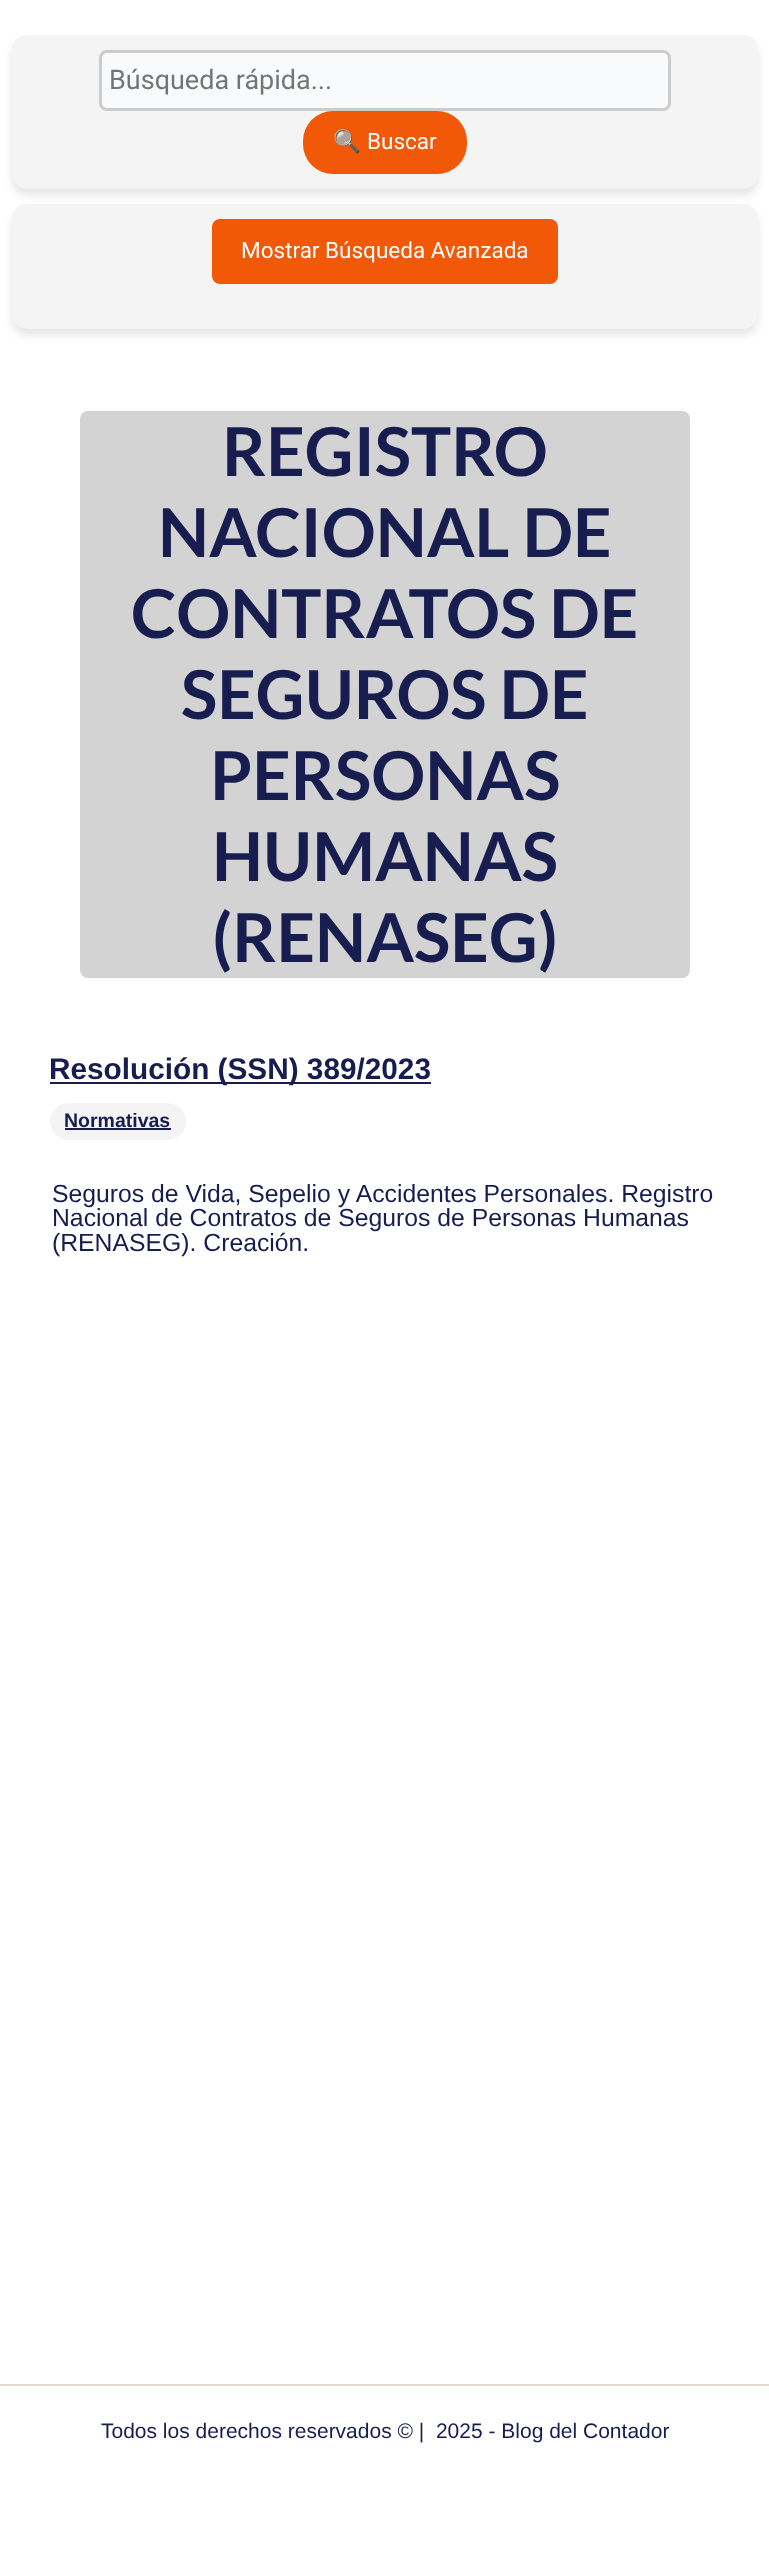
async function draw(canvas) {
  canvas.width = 769
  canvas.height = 2565
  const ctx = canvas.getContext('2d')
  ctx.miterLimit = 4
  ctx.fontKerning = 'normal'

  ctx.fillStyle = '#fff'
  ctx.fillRect(0, 0, 769, 2565)
  ctx.fillStyle = '#0000001a'
  ctx.filter = 'blur(4.5px)'
  ctx.beginPath()
  ctx.roundRect(12, 41, 746, 154, 15)
  ctx.fill()
  ctx.filter = 'none'
  ctx.fillStyle = '#f4f4f4'
  ctx.beginPath()
  ctx.roundRect(12, 35, 746, 154, 15)
  ctx.fill()
  ctx.fillStyle = '#f9fafb'
  ctx.beginPath()
  ctx.roundRect(100.5, 51.5, 569, 58, 6.5)
  ctx.fill()
  ctx.strokeStyle = '#ccc'
  ctx.lineWidth = 3
  ctx.stroke()
  ctx.font = '27px Roboto'
  ctx.fillStyle = '#757575'
  ctx.fillText('Búsqueda rápida...', 109, 89)
  ctx.fillStyle = '#f15808'
  ctx.beginPath()
  ctx.roundRect(303, 111, 164, 63, 30)
  ctx.fill()
  ctx.font = '22.5px Noto Color Emoji'
  ctx.fillStyle = '#fff'
  ctx.fillText('🔍', 333, 149)
  ctx.font = '22.5px Roboto'
  ctx.fillText('Buscar', 367, 149)
  ctx.fillStyle = '#0000001a'
  ctx.filter = 'blur(4.5px)'
  ctx.beginPath()
  ctx.roundRect(12, 210, 746, 125, 15)
  ctx.fill()
  ctx.filter = 'none'
  ctx.fillStyle = '#f4f4f4'
  ctx.beginPath()
  ctx.roundRect(12, 204, 746, 125, 15)
  ctx.fill()
  ctx.fillStyle = '#f15808'
  ctx.beginPath()
  ctx.roundRect(212, 219, 346, 65, 8)
  ctx.fill()
  ctx.fillStyle = '#fff'
  ctx.fillText('Mostrar Búsqueda Avanzada', 241, 258)
  ctx.fillStyle = '#d3d3d3'
  ctx.beginPath()
  ctx.roundRect(80, 411, 610, 567, 8)
  ctx.fill()
  ctx.font = 'bold 67.5px Lato'
  ctx.fillStyle = '#171d4f'
  ctx.fillText('REGISTRO', 222, 476)
  ctx.fillText('NACIONAL DE', 158, 557)
  ctx.fillText('CONTRATOS DE', 131, 638)
  ctx.fillText('SEGUROS DE', 181, 719)
  ctx.fillText('PERSONAS', 210, 800)
  ctx.fillText('HUMANAS', 212, 881)
  ctx.fillText('(RENASEG)', 212, 962)
  ctx.fillRect(50, 1082, 381, 2)
  ctx.font = 'bold 29.75px Liberation Sans'
  ctx.fillText('Resolución (SSN) 389/2023', 49, 1079)
  ctx.fillStyle = '#f4f4f4'
  ctx.beginPath()
  ctx.roundRect(50, 1103, 136, 37, 18.5)
  ctx.fill()
  ctx.font = 'bold 19.5px Liberation Sans'
  ctx.fillStyle = '#171d4f'
  ctx.fillText('Normativas', 64, 1127)
  ctx.fillRect(65, 1128, 106, 2)
  ctx.font = '24.75px Liberation Sans'
  ctx.fillText('Seguros de Vida, Sepelio y Accidentes Personales. Registro', 52, 1202)
  ctx.fillText('Nacional de Contratos de Seguros de Personas Humanas', 52, 1226)
  ctx.fillText('(RENASEG). Creación.', 52, 1251)
  ctx.fillStyle = '#e5d7d1'
  ctx.fillRect(0, 2384, 769, 2)
  ctx.font = '21px Liberation Sans'
  ctx.fillStyle = '#171d4f'
  ctx.fillText('Todos los derechos reservados © |  2025 - Blog del Contador', 101, 2438)
}

draw(document.querySelector('canvas'))
